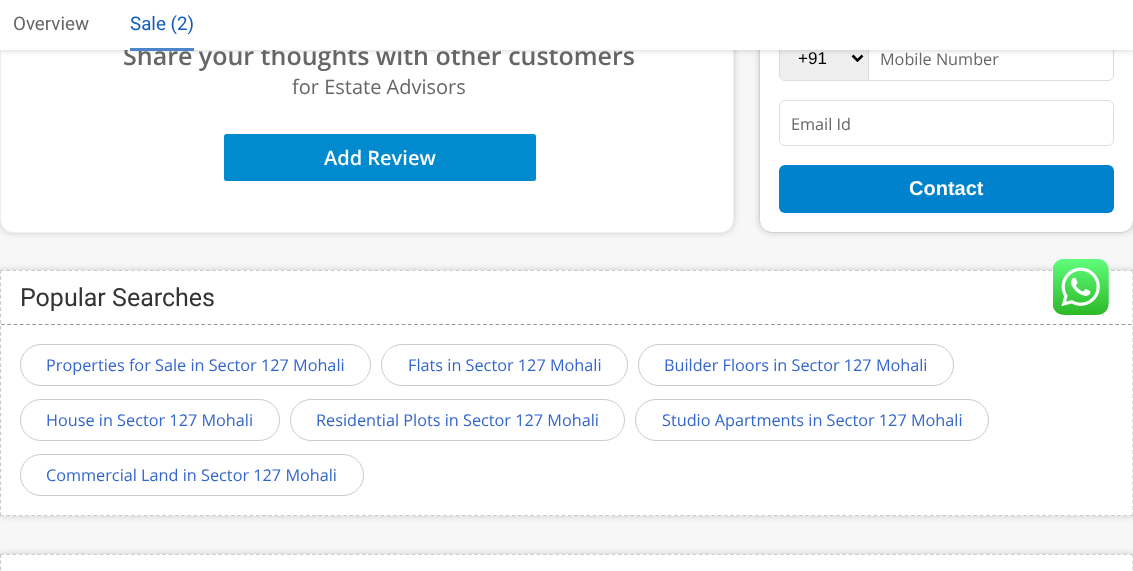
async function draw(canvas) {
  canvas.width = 1133
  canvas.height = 571
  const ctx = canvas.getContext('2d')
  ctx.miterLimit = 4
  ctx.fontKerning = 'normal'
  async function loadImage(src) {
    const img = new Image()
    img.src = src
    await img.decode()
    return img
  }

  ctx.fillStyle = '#f7f7f7'
  ctx.fillRect(0, 0, 1133, 571)
  ctx.fillStyle = '#ccc'
  ctx.filter = 'blur(3px)'
  ctx.beginPath()
  ctx.roundRect(0, -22, 734, 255, 13)
  ctx.fill()
  ctx.filter = 'none'
  ctx.fillStyle = '#fff'
  ctx.beginPath()
  ctx.roundRect(0.5, -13.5, 733, 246, 12.5)
  ctx.fill()
  ctx.strokeStyle = '#efefef'
  ctx.stroke()
  ctx.fillStyle = '#ccc'
  ctx.filter = 'blur(3px)'
  ctx.beginPath()
  ctx.roundRect(759, -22, 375, 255, 13)
  ctx.fill()
  ctx.filter = 'none'
  ctx.fillStyle = '#fff'
  ctx.beginPath()
  ctx.roundRect(759.5, -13.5, 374, 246, 12.5)
  ctx.fill()
  ctx.strokeStyle = '#d3d3d3'
  ctx.stroke()
  ctx.fillStyle = '#efefef'
  ctx.beginPath()
  ctx.roundRect(780, 36, 88, 44, [5, 0, 0, 5])
  ctx.fill()
  ctx.fillStyle = '#ddd'
  ctx.beginPath()
  ctx.moveTo(785, 35)
  ctx.lineTo(868, 35)
  ctx.lineTo(868, 81)
  ctx.lineTo(785, 81)
  ctx.bezierCurveTo(782, 81, 779, 78, 779, 75)
  ctx.lineTo(779, 41)
  ctx.bezierCurveTo(779, 38, 782, 35, 785, 35)
  ctx.closePath()
  ctx.moveTo(785, 36)
  ctx.lineTo(868, 36)
  ctx.lineTo(868, 80)
  ctx.lineTo(785, 80)
  ctx.bezierCurveTo(782, 80, 780, 78, 780, 75)
  ctx.lineTo(780, 41)
  ctx.bezierCurveTo(780, 38, 782, 36, 785, 36)
  ctx.closePath()
  ctx.fill('evenodd')
  ctx.beginPath()
  ctx.moveTo(852.5, 55.5)
  ctx.lineTo(857.5, 60.5)
  ctx.lineTo(862.5, 55.5)
  ctx.strokeStyle = '#000'
  ctx.lineWidth = 2.5
  ctx.stroke()
  ctx.beginPath()
  ctx.roundRect(868.5, 35.5, 245, 45, [0, 5.5, 5.5, 0])
  ctx.strokeStyle = '#ddd'
  ctx.lineWidth = 1
  ctx.stroke()
  ctx.fillStyle = '#00000033'
  ctx.filter = 'blur(3px)'
  ctx.beginPath()
  ctx.rect(0, 0, 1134, 50)
  ctx.fill()
  ctx.filter = 'none'
  ctx.font = '600 25px Open Sans'
  ctx.fillStyle = '#666'
  ctx.fillText('Share your thoughts with other customers', 123, 65)
  ctx.fillStyle = '#fff'
  ctx.fillRect(0, 0, 1133, 50)
  ctx.font = '18.75px Roboto'
  ctx.fillStyle = '#666'
  ctx.fillText('Overview', 13, 30)
  ctx.fillStyle = '#4d85cc'
  ctx.fillRect(130, 48, 64, 3)
  ctx.fillStyle = '#115cbb'
  ctx.fillText('Sale (2)', 130, 30)
  ctx.font = '20px Open Sans'
  ctx.fillStyle = '#666'
  ctx.fillText('for Estate Advisors', 292, 94)
  ctx.fillStyle = '#028acf'
  ctx.beginPath()
  ctx.roundRect(224, 134, 312, 47, 2.5)
  ctx.fill()
  ctx.font = '600 20px Open Sans'
  ctx.fillStyle = '#fff'
  ctx.fillText('Add Review', 324, 165)
  ctx.font = '17px Liberation Sans'
  ctx.fillStyle = '#000'
  ctx.fillText('+91', 798, 64)
  ctx.font = '16.25px Open Sans'
  ctx.fillStyle = '#666'
  ctx.fillText('Mobile Number', 880, 65)
  ctx.beginPath()
  ctx.roundRect(779.5, 100.5, 334, 45, 5.5)
  ctx.stroke()
  ctx.fillText('Email Id', 791, 130)
  ctx.fillStyle = '#0082cc'
  ctx.beginPath()
  ctx.roundRect(779, 165, 335, 48, 6)
  ctx.fill()
  ctx.font = 'bold 20px Liberation Sans'
  ctx.fillStyle = '#fff'
  ctx.fillText('Contact', 909, 195)
  ctx.fillStyle = '#ccc'
  ctx.filter = 'blur(3px)'
  ctx.beginPath()
  ctx.rect(0, 270, 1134, 246)
  ctx.fill()
  ctx.filter = 'none'
  ctx.fillStyle = '#fff'
  ctx.fillRect(0, 270, 1133, 246)
  ctx.beginPath()
  ctx.moveTo(0, 270.5)
  ctx.lineTo(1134, 270.5)
  ctx.strokeStyle = '#ccc'
  ctx.lineWidth = 1.2
  ctx.setLineDash([3.75, 2.49])
  ctx.stroke()
  ctx.beginPath()
  ctx.moveTo(1133, 270)
  ctx.lineTo(1133, 516)
  ctx.setLineDash([3.75, 2.46])
  ctx.stroke()
  ctx.beginPath()
  ctx.moveTo(0, 515.5)
  ctx.lineTo(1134, 515.5)
  ctx.setLineDash([3.75, 2.49])
  ctx.stroke()
  ctx.beginPath()
  ctx.moveTo(0.5, 270)
  ctx.lineTo(0.5, 516)
  ctx.setLineDash([3.75, 2.46])
  ctx.stroke()
  ctx.beginPath()
  ctx.moveTo(1, 324.5)
  ctx.lineTo(1132.5, 324.5)
  ctx.strokeStyle = '#999'
  ctx.setLineDash([3.75, 2.51])
  ctx.stroke()
  ctx.font = '25px Roboto'
  ctx.fillStyle = '#333'
  ctx.fillText('Popular Searches', 20, 306)
  ctx.beginPath()
  ctx.roundRect(20.5, 344.5, 350, 41, 20.5)
  ctx.strokeStyle = '#ccc'
  ctx.lineWidth = 1
  ctx.setLineDash([])
  ctx.stroke()
  ctx.font = '16.25px Open Sans'
  ctx.fillStyle = '#36c'
  ctx.fillText('Properties for Sale in Sector 127 Mohali', 46, 371)
  ctx.beginPath()
  ctx.roundRect(381.5, 344.5, 246, 41, 20.5)
  ctx.stroke()
  ctx.fillText('Flats in Sector 127 Mohali', 408, 371)
  ctx.beginPath()
  ctx.roundRect(638.5, 344.5, 315, 41, 20.5)
  ctx.stroke()
  ctx.fillText('Builder Floors in Sector 127 Mohali', 664, 371)
  ctx.beginPath()
  ctx.roundRect(20.5, 399.5, 259, 41, 20.5)
  ctx.stroke()
  ctx.fillText('House in Sector 127 Mohali', 46, 426)
  ctx.beginPath()
  ctx.roundRect(290.5, 399.5, 334, 41, 20.5)
  ctx.stroke()
  ctx.fillText('Residential Plots in Sector 127 Mohali', 316, 426)
  ctx.beginPath()
  ctx.roundRect(635.5, 399.5, 353, 41, 20.5)
  ctx.stroke()
  ctx.fillText('Studio Apartments in Sector 127 Mohali', 662, 426)
  ctx.beginPath()
  ctx.roundRect(20.5, 454.5, 343, 41, 20.5)
  ctx.stroke()
  ctx.fillText('Commercial Land in Sector 127 Mohali', 46, 481)
  ctx.fillStyle = '#ccc'
  ctx.filter = 'blur(3px)'
  ctx.beginPath()
  ctx.rect(0, 554, 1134, 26)
  ctx.fill()
  ctx.filter = 'none'
  ctx.fillStyle = '#fff'
  ctx.fillRect(0, 554, 1133, 17)
  ctx.beginPath()
  ctx.moveTo(0, 554.5)
  ctx.lineTo(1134, 554.5)
  ctx.lineWidth = 1.2
  ctx.setLineDash([3.75, 2.49])
  ctx.stroke()
  ctx.beginPath()
  ctx.moveTo(1133, 554)
  ctx.lineTo(1133, 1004)
  ctx.setLineDash([3.75, 2.54])
  ctx.stroke()
  ctx.beginPath()
  ctx.moveTo(0.5, 554)
  ctx.lineTo(0.5, 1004)
  ctx.stroke()
  ctx.drawImage(await loadImage('image0.png'), 1053, 259, 56, 56)
}

draw(document.querySelector('canvas'))
